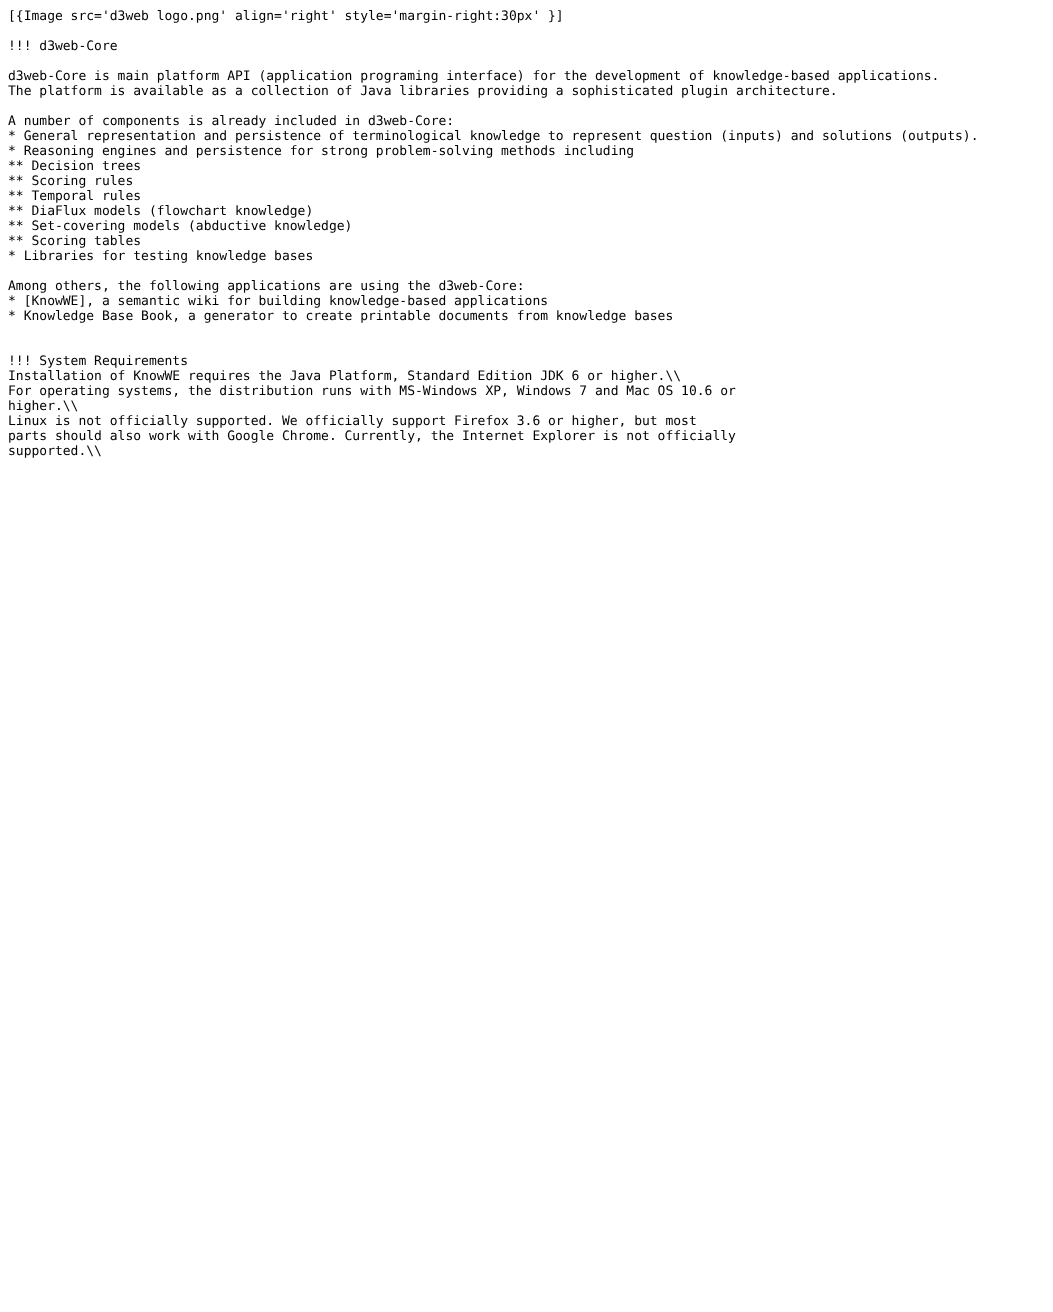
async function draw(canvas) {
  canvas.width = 1053
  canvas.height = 1312
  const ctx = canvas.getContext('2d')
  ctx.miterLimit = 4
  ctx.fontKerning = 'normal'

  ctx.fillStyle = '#fff'
  ctx.fillRect(0, 0, 1053, 1312)
  ctx.font = '13px DejaVu Sans Mono'
  ctx.fillStyle = '#000'
  ctx.fillText('[{Image src=\'d3web logo.png\' align=\'right\' style=\'margin-right:30px\' }]', 8, 20)
  ctx.fillText('!!! d3web-Core', 8, 50)
  ctx.fillText('d3web-Core is main platform API (application programing interface) for the development of knowledge-based applications.', 8, 80)
  ctx.fillText('The platform is available as a collection of Java libraries providing a sophisticated plugin architecture.', 8, 95)
  ctx.fillText('A number of components is already included in d3web-Core:', 8, 125)
  ctx.fillText('* General representation and persistence of terminological knowledge to represent question (inputs) and solutions (outputs).', 8, 140)
  ctx.fillText('* Reasoning engines and persistence for strong problem-solving methods including', 8, 155)
  ctx.fillText('** Decision trees', 8, 170)
  ctx.fillText('** Scoring rules', 8, 185)
  ctx.fillText('** Temporal rules', 8, 200)
  ctx.fillText('** DiaFlux models (flowchart knowledge)', 8, 215)
  ctx.fillText('** Set-covering models (abductive knowledge)', 8, 230)
  ctx.fillText('** Scoring tables', 8, 245)
  ctx.fillText('* Libraries for testing knowledge bases', 8, 260)
  ctx.fillText('Among others, the following applications are using the d3web-Core:', 8, 290)
  ctx.fillText('* [KnowWE], a semantic wiki for building knowledge-based applications', 8, 305)
  ctx.fillText('* Knowledge Base Book, a generator to create printable documents from knowledge bases', 8, 320)
  ctx.fillText('!!! System Requirements', 8, 365)
  ctx.fillText('Installation of KnowWE requires the Java Platform, Standard Edition JDK 6 or higher.\\\\', 8, 380)
  ctx.fillText('For operating systems, the distribution runs with MS-Windows XP, Windows 7 and Mac OS 10.6 or', 8, 395)
  ctx.fillText('higher.\\\\', 8, 410)
  ctx.fillText('Linux is not officially supported. We officially support Firefox 3.6 or higher, but most', 8, 425)
  ctx.fillText('parts should also work with Google Chrome. Currently, the Internet Explorer is not officially', 8, 440)
  ctx.fillText('supported.\\\\', 8, 455)
}

draw(document.querySelector('canvas'))
